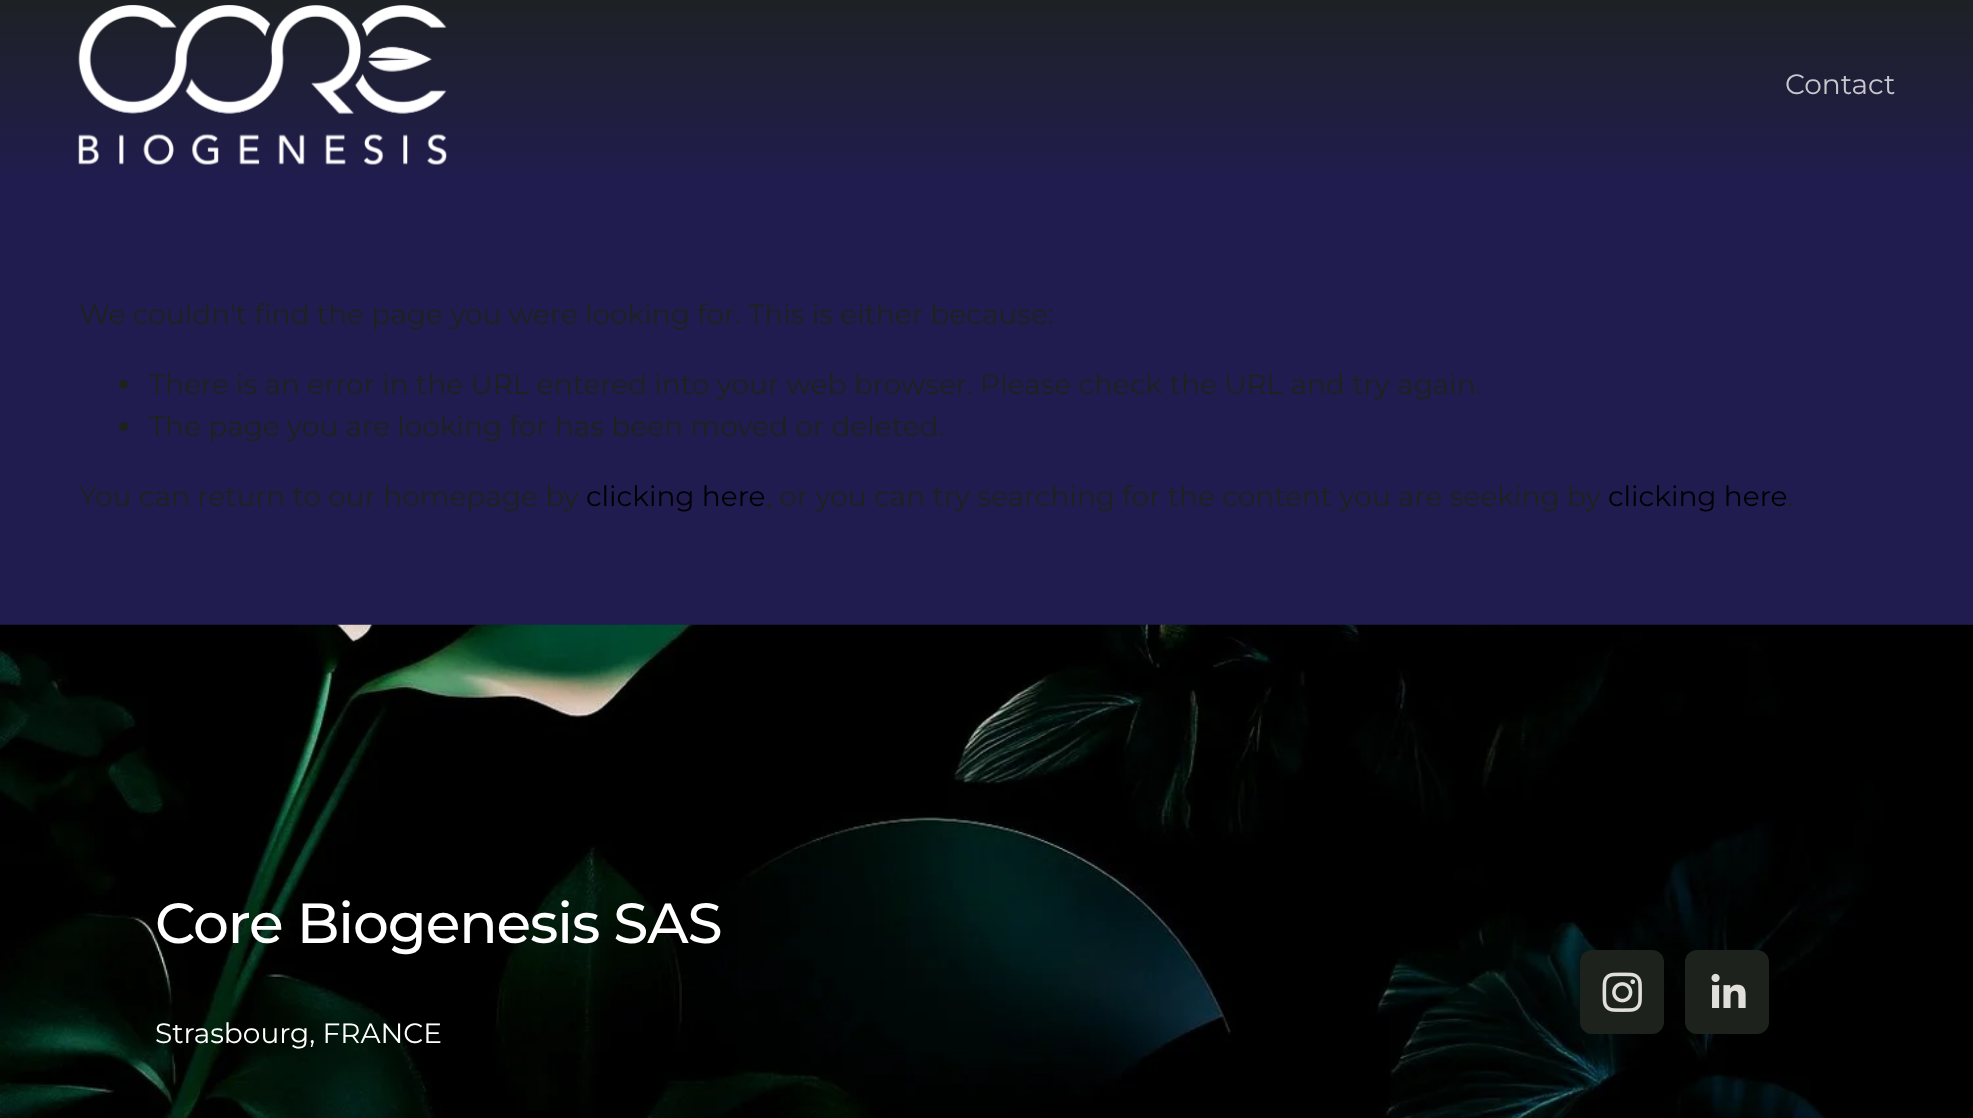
async function draw(canvas) {
  canvas.width = 1973
  canvas.height = 1118
  const ctx = canvas.getContext('2d')
  ctx.miterLimit = 4
  ctx.fontKerning = 'normal'
  async function loadImage(src) {
    const img = new Image()
    img.src = src
    await img.decode()
    return img
  }
  let gradient

  ctx.fillStyle = '#201c50'
  ctx.fillRect(0, 0, 1973, 1118)
  gradient = ctx.createLinearGradient(987, -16, 987, 187)
  gradient.addColorStop(0, '#1d2221')
  gradient.addColorStop(1, '#201c50')
  ctx.fillStyle = gradient
  ctx.fillRect(0, 0, 1973, 176)
  ctx.drawImage(await loadImage('image0.png'), 78, 5, 369, 160)
  ctx.font = '28px Montserrat'
  ctx.fillStyle = '#c7c7cd'
  ctx.fillText('Contact', 1785, 94)
  ctx.fillStyle = '#1d231c'
  ctx.fillText('We couldn\'t find the page you were looking for. This is either because:', 79, 324)
  ctx.beginPath()
  ctx.arc(123.5, 384.5, 4.5, 0, 2 * Math.PI)
  ctx.fill()
  ctx.fillText('There is an error in the URL entered into your web browser. Please check the URL and try again.', 149, 394)
  ctx.beginPath()
  ctx.arc(123.5, 426.5, 4.5, 0, 2 * Math.PI)
  ctx.fill()
  ctx.fillText('The page you are looking for has been moved or deleted.', 149, 436)
  ctx.fillText('You can return to our homepage by', 79, 506)
  ctx.fillStyle = '#000'
  ctx.fillText('clicking here', 586, 506)
  ctx.fillStyle = '#1d231c'
  ctx.fillText(', or you can try searching for the content you are seeking by', 766, 506)
  ctx.fillStyle = '#000'
  ctx.fillText('clicking here', 1608, 506)
  ctx.fillStyle = '#1d231c'
  ctx.fillText('.', 1787, 506)
  ctx.drawImage(await loadImage('image1.png'), 0, 624, 1973, 494)
  ctx.letterSpacing = '-1.1px'
  ctx.font = '500 56.5px Montserrat'
  ctx.fillStyle = '#fff'
  ctx.fillText('Core Biogenesis SAS', 155, 943)
  ctx.letterSpacing = '0px'
  ctx.font = '28px Montserrat'
  ctx.fillText('Strasbourg, FRANCE', 155, 1043)
  ctx.fillStyle = '#1d231c'
  ctx.beginPath()
  ctx.roundRect(1580, 950, 84, 84, 12)
  ctx.fill()
  ctx.drawImage(await loadImage('image2.png'), 1602, 972, 40, 40)
  ctx.beginPath()
  ctx.roundRect(1685, 950, 84, 84, 12)
  ctx.fill()
  ctx.drawImage(await loadImage('image3.png'), 1711, 973, 35, 35)
}

draw(document.querySelector('canvas'))
